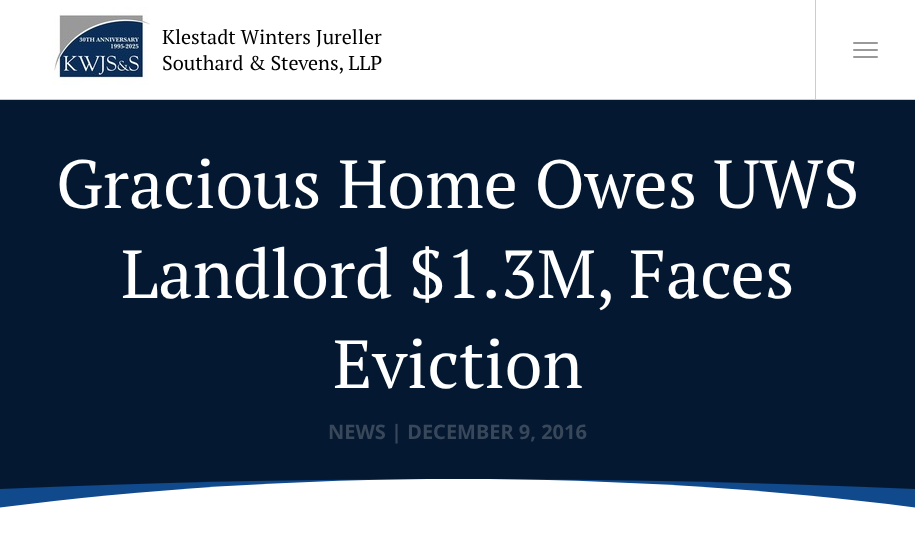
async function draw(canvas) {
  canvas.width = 915
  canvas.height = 557
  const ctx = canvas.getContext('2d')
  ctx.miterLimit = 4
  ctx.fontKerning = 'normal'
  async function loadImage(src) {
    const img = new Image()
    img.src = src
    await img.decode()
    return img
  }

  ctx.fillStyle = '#fff'
  ctx.fillRect(0, 0, 915, 557)
  ctx.fillStyle = '#ccc'
  ctx.fillRect(0, 99, 915, 1)
  ctx.drawImage(await loadImage('image0.png'), 52, 7, 98, 78)
  ctx.font = '20px PT Serif'
  ctx.fillStyle = '#000'
  ctx.fillText('Klestadt Winters Jureller', 162, 44)
  ctx.fillText('Southard & Stevens, LLP', 162, 70)
  ctx.fillStyle = '#ccc'
  ctx.fillRect(815, 0, 1, 100)
  ctx.fillStyle = '#999'
  ctx.beginPath()
  ctx.roundRect(853, 42, 25, 2, 1)
  ctx.fill()
  ctx.beginPath()
  ctx.roundRect(853, 49, 25, 2, 1)
  ctx.fill()
  ctx.beginPath()
  ctx.roundRect(853, 56, 25, 2, 1)
  ctx.fill()
  ctx.fillStyle = '#041931'
  ctx.fillRect(0, 100, 915, 390)
  ctx.font = '68px PT Serif'
  ctx.fillStyle = '#fff'
  ctx.fillText('Gracious Home Owes UWS', 56, 208)
  ctx.fillText('Landlord $1.3M, Faces', 121, 298)
  ctx.fillText('Eviction', 333, 388)
  ctx.font = 'bold 20px Noto Sans'
  ctx.fillStyle = '#384759'
  ctx.fillText('NEWS | DECEMBER 9, 2016', 328, 439)
  ctx.save()
  ctx.beginPath()
  ctx.rect(0, 100, 915, 449)
  ctx.clip()
  ctx.fillStyle = '#10498c'
  ctx.beginPath()
  ctx.moveTo(458, 479)
  ctx.bezierCurveTo(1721, 479, 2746, 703, 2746, 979)
  ctx.lineTo(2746, 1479)
  ctx.lineTo(-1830, 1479)
  ctx.lineTo(-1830, 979)
  ctx.bezierCurveTo(-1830, 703, -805, 479, 458, 479)
  ctx.closePath()
  ctx.fill()
  ctx.fillStyle = '#fff'
  ctx.beginPath()
  ctx.moveTo(458, 479)
  ctx.bezierCurveTo(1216, 479, 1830, 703, 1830, 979)
  ctx.lineTo(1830, 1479)
  ctx.lineTo(-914, 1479)
  ctx.lineTo(-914, 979)
  ctx.bezierCurveTo(-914, 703, -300, 479, 458, 479)
  ctx.closePath()
  ctx.fill()
  ctx.restore()
}

draw(document.querySelector('canvas'))
